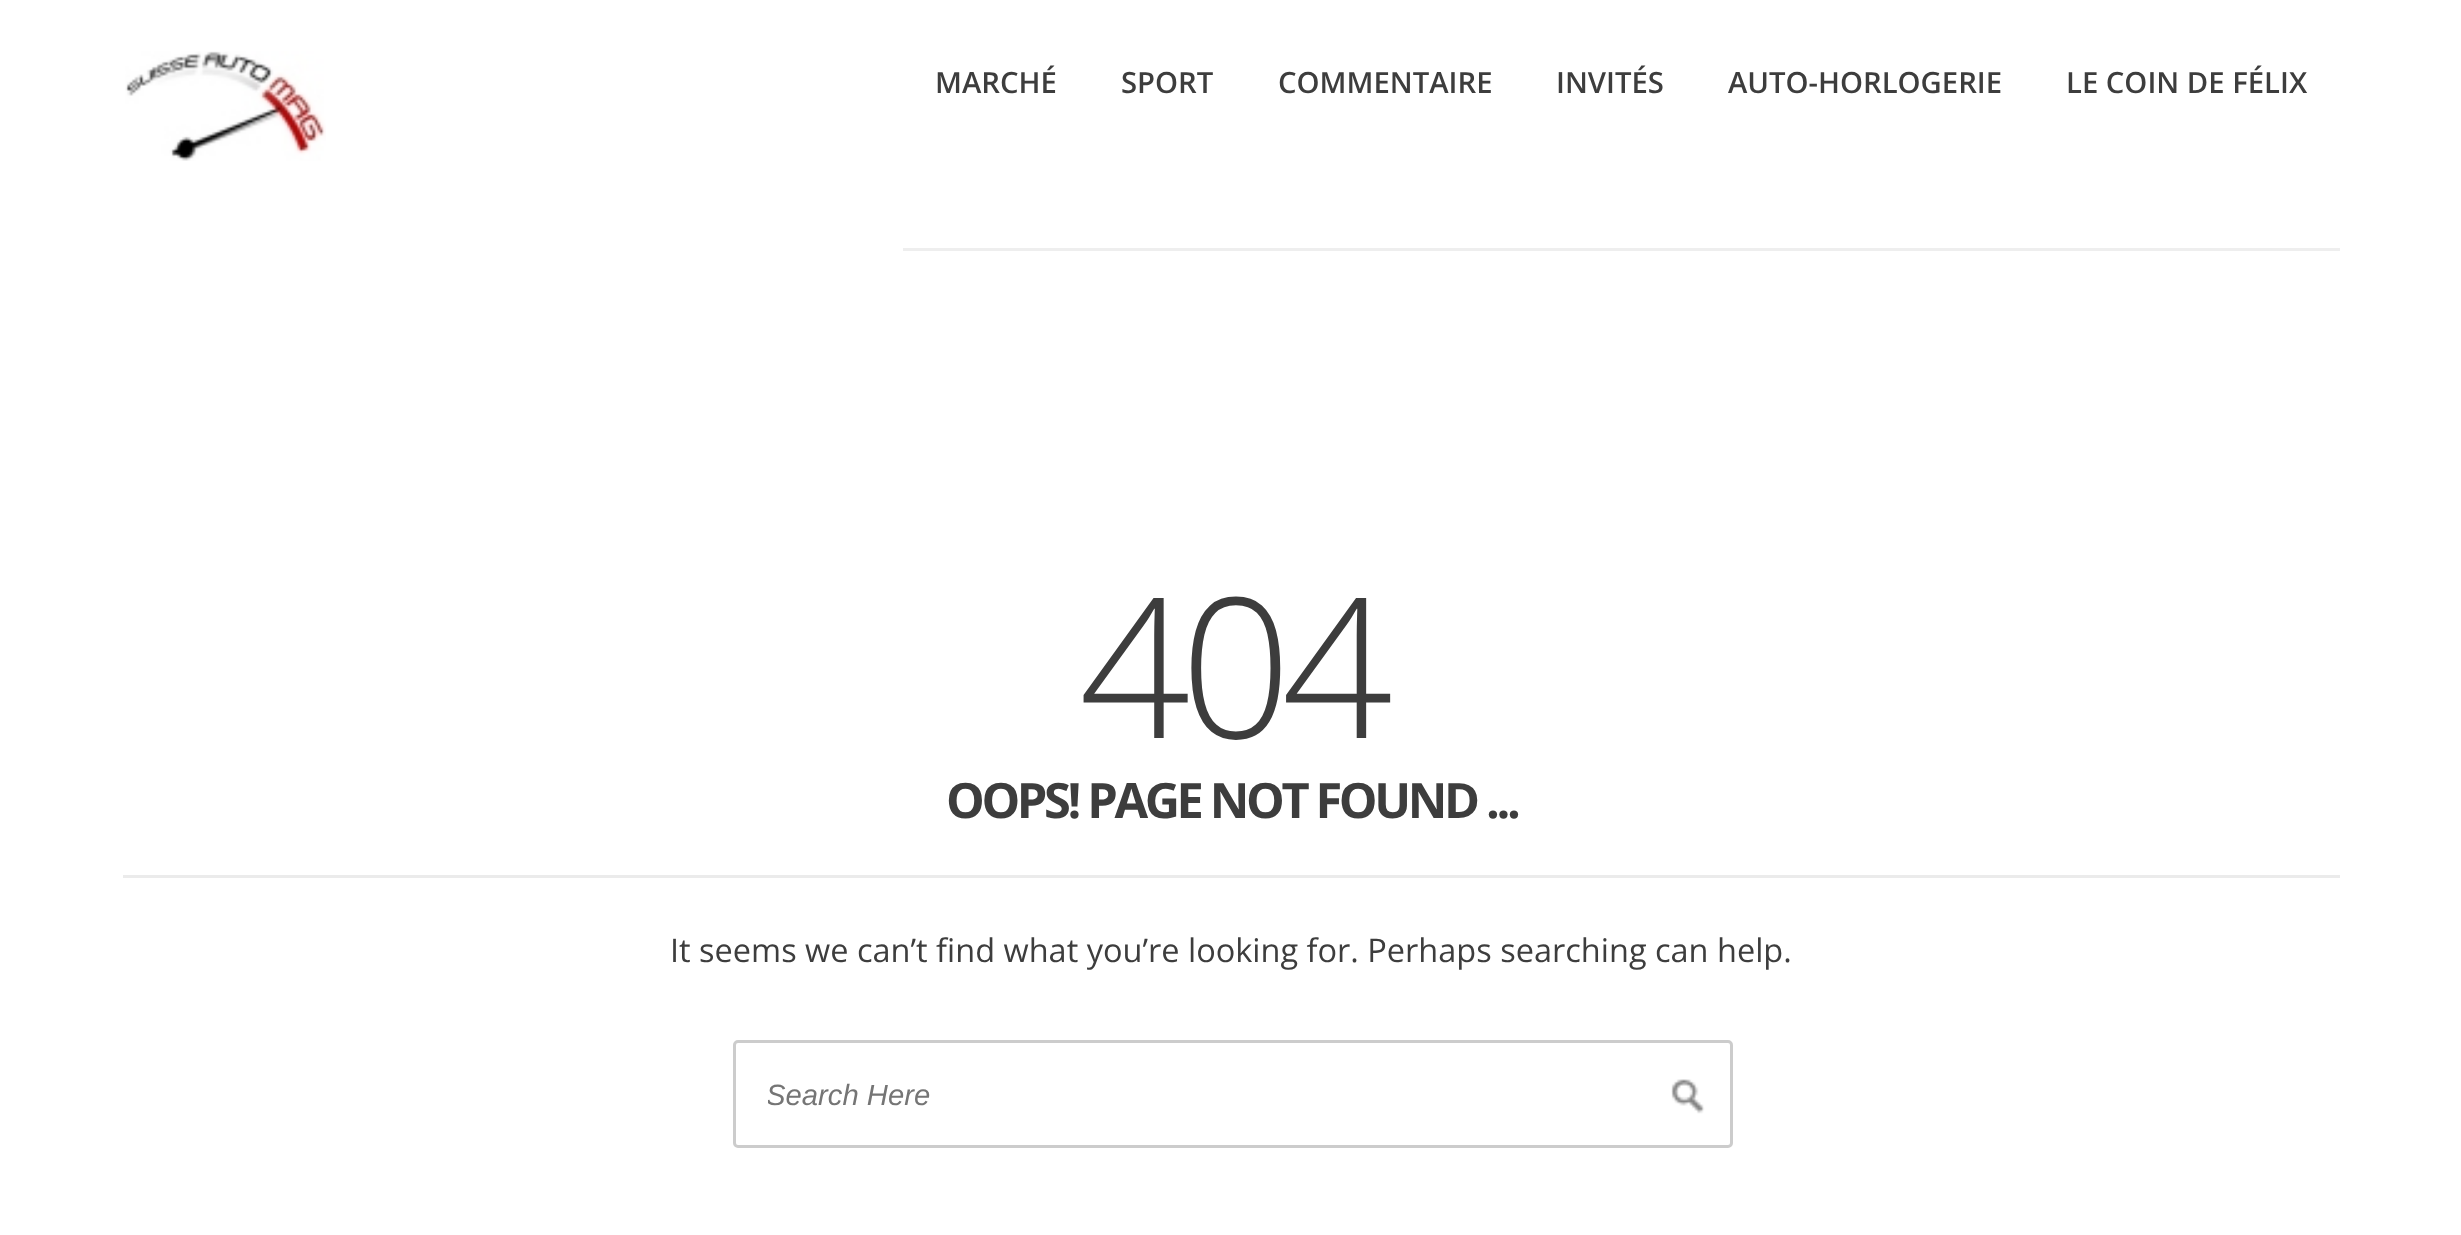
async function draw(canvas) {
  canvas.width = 2461
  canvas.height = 1235
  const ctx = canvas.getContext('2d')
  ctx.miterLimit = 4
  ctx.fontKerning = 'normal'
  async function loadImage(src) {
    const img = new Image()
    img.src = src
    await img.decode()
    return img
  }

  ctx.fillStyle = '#fff'
  ctx.fillRect(0, 0, 2461, 1235)
  ctx.drawImage(await loadImage('image0.png'), 125, 51, 201, 110)
  ctx.fillStyle = '#eee'
  ctx.fillRect(903, 248, 1437, 3)
  ctx.font = '600 29.25px Open Sans'
  ctx.fillStyle = '#3d3d3d'
  ctx.fillText('MARCHÉ', 935, 93)
  ctx.fillText('SPORT', 1121, 93)
  ctx.fillText('COMMENTAIRE', 1278, 93)
  ctx.fillText('INVITÉS', 1556, 93)
  ctx.fillText('AUTO-HORLOGERIE', 1728, 93)
  ctx.fillText('LE COIN DE FÉLIX', 2066, 93)
  ctx.letterSpacing = '-10px'
  ctx.font = '300 195px Open Sans'
  ctx.fillText('404', 1079, 738)
  ctx.letterSpacing = '-3.4px'
  ctx.font = 'bold 48.75px Open Sans'
  ctx.fillText('OOPS! PAGE NOT FOUND ...', 946, 818)
  ctx.fillStyle = '#ebebeb'
  ctx.fillRect(123, 875, 2217, 3)
  ctx.letterSpacing = '0px'
  ctx.font = '32.5px Open Sans'
  ctx.fillStyle = '#3d3d3d'
  ctx.fillText('It seems we can’t find what you’re looking for. Perhaps searching can help.', 670, 962)
  ctx.beginPath()
  ctx.roundRect(734.5, 1041.5, 997, 105, 3.5)
  ctx.strokeStyle = '#ccc'
  ctx.lineWidth = 3
  ctx.stroke()
  ctx.save()
  ctx.beginPath()
  ctx.rect(768, 1078, 850, 32)
  ctx.clip()
  ctx.font = 'italic 29.25px Liberation Sans'
  ctx.fillStyle = '#757575'
  ctx.fillText('Search Here', 766, 1105)
  ctx.restore()
  ctx.drawImage(await loadImage('image1.png'), 1671, 1079, 34, 35)
}

draw(document.querySelector('canvas'))
